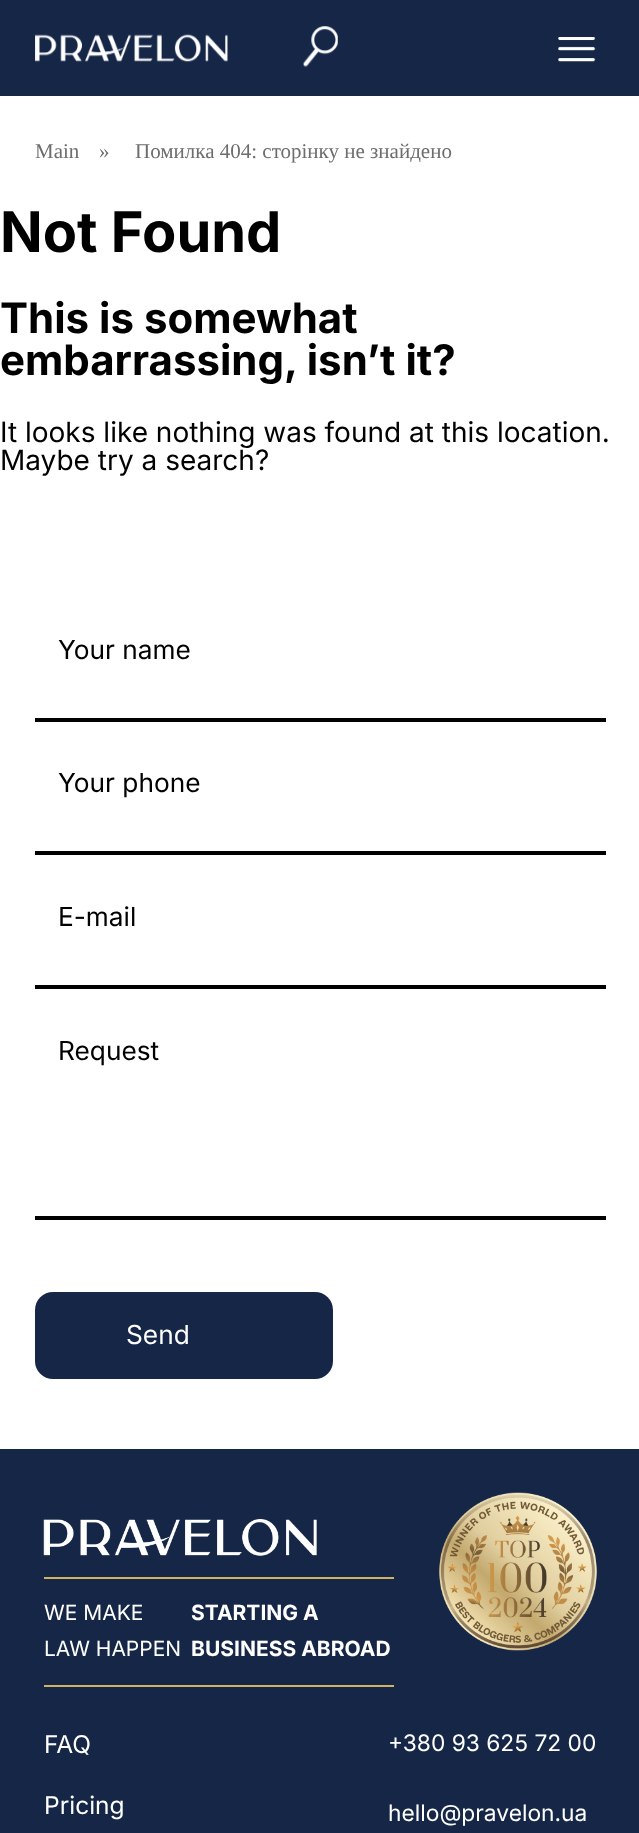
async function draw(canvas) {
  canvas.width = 639
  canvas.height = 1833
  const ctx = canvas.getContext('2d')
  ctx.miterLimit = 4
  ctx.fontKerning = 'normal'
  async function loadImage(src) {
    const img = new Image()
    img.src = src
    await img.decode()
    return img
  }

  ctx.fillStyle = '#fff'
  ctx.fillRect(0, 0, 639, 1833)
  ctx.fillStyle = '#152647'
  ctx.fillRect(0, 0, 639, 96)
  ctx.drawImage(await loadImage('image0.png'), 35, 34, 193, 28)
  ctx.drawImage(await loadImage('image1.png'), 302, 26, 36, 42)
  ctx.drawImage(await loadImage('image2.png'), 558, 37, 38, 25)
  ctx.font = '21px Liberation Serif'
  ctx.fillStyle = '#6d6d6d'
  ctx.fillText('Main', 35, 158)
  ctx.fillText('»', 99, 158)
  ctx.fillText('Помилка 404: сторiнку не знайдено', 135, 158)
  ctx.font = 'bold 56px Inter'
  ctx.fillStyle = '#000'
  ctx.fillText('Not Found', 0, 252)
  ctx.font = 'bold 42px Inter'
  ctx.fillText('This is somewhat', 0, 333)
  ctx.fillText('embarrassing, isn’t it?', 0, 375)
  ctx.font = '28px Inter'
  ctx.fillText('It looks like nothing was found at this location.', 0, 442)
  ctx.fillText('Maybe try a search?', 0, 470)
  ctx.fillRect(35, 718, 571, 4)
  ctx.font = '26.25px Inter'
  ctx.fillText('Your name', 58, 659)
  ctx.fillRect(35, 851, 571, 4)
  ctx.fillText('Your phone', 58, 792)
  ctx.fillRect(35, 985, 571, 4)
  ctx.fillText('E-mail', 58, 926)
  ctx.fillRect(35, 1216, 571, 4)
  ctx.fillText('Request', 58, 1060)
  ctx.fillStyle = '#152647'
  ctx.beginPath()
  ctx.roundRect(35, 1292, 298, 87, 18)
  ctx.fill()
  ctx.fillStyle = '#fff'
  ctx.fillText('Send', 126, 1344)
  ctx.fillStyle = '#152647'
  ctx.fillRect(0, 1449, 639, 384)
  ctx.drawImage(await loadImage('image3.png'), 43, 1519, 274, 37)
  ctx.fillStyle = '#ceb364'
  ctx.fillRect(44, 1577, 350, 2)
  ctx.fillRect(44, 1685, 350, 2)
  ctx.font = '21px Inter'
  ctx.fillStyle = '#fff'
  ctx.fillText('WE MAKE', 44, 1620)
  ctx.font = 'bold 21px Inter'
  ctx.fillText('STARTING A', 191, 1620)
  ctx.fillText('BUSINESS ABROAD', 191, 1656)
  ctx.font = '21px Inter'
  ctx.fillText('LAW HAPPEN', 44, 1656)
  ctx.drawImage(await loadImage('image4.png'), 439, 1492, 158, 159)
  ctx.font = '24.5px Inter'
  ctx.fillText('FAQ', 44, 1753)
  ctx.fillText('Pricing', 44, 1814)
  ctx.font = '22.75px Inter'
  ctx.fillText('+380 93 625 72 00', 388, 1751)
  ctx.fillText('hello@pravelon.ua', 388, 1821)
}

draw(document.querySelector('canvas'))
